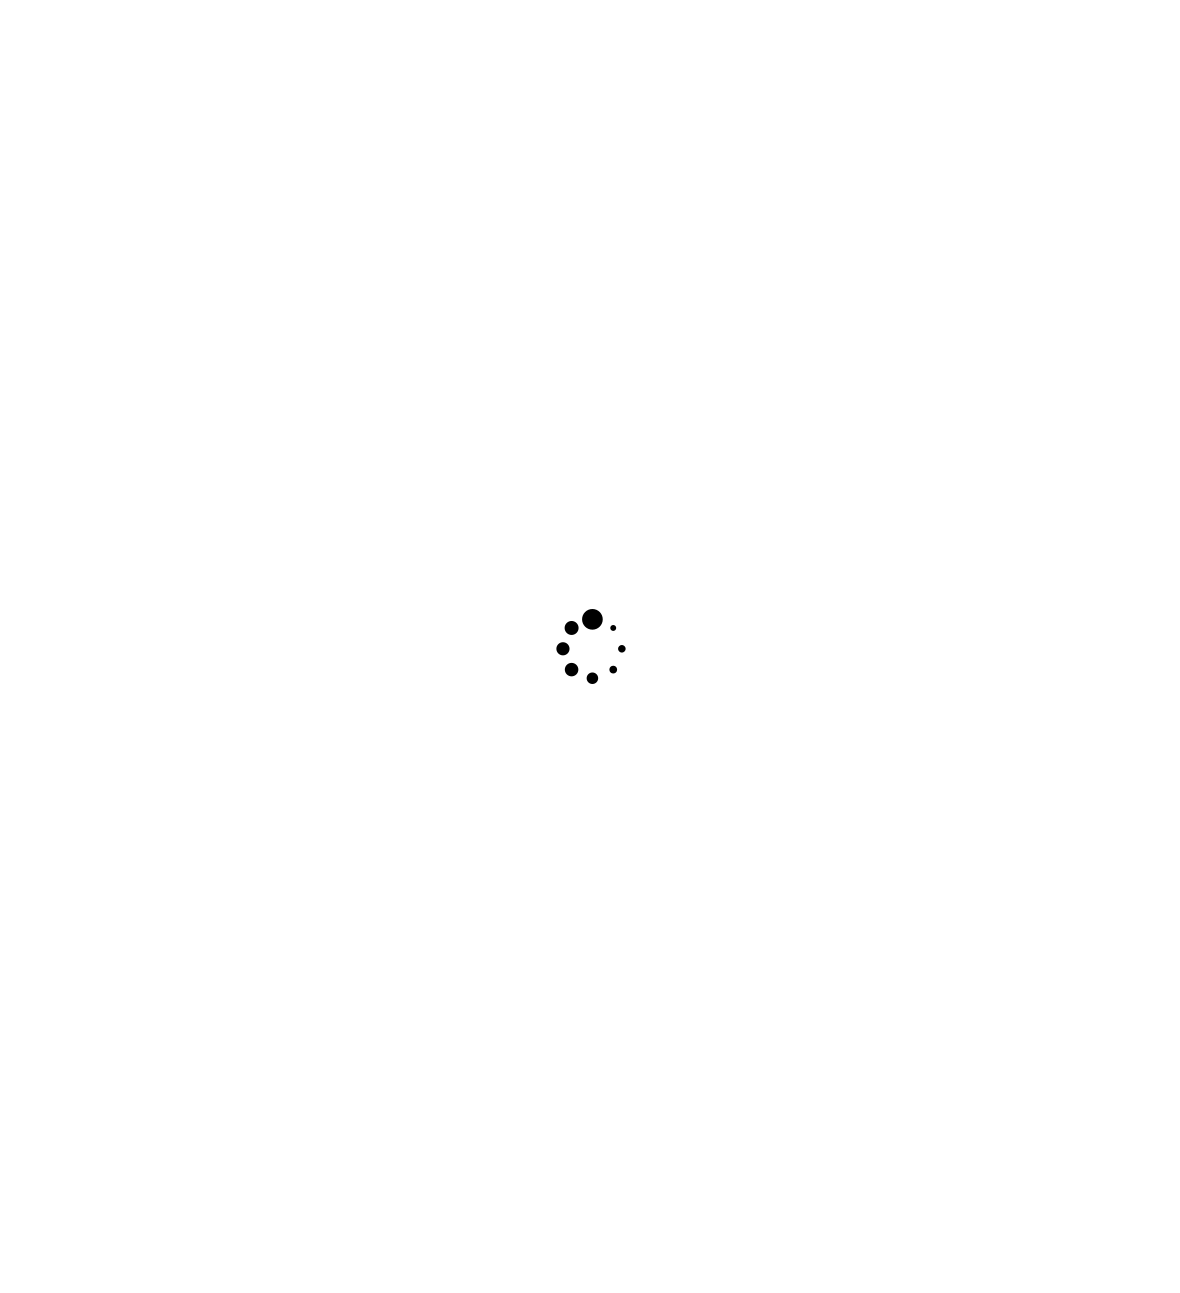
async function draw(canvas) {
  canvas.width = 1180
  canvas.height = 1293
  const ctx = canvas.getContext('2d')
  ctx.miterLimit = 4
  ctx.fontKerning = 'normal'
  async function loadImage(src) {
    const img = new Image()
    img.src = src
    await img.decode()
    return img
  }

  ctx.fillStyle = '#fff'
  ctx.fillRect(0, 0, 1180, 1293)
  ctx.drawImage(await loadImage('image0.png'), 556, 609, 70, 75)
}

draw(document.querySelector('canvas'))
